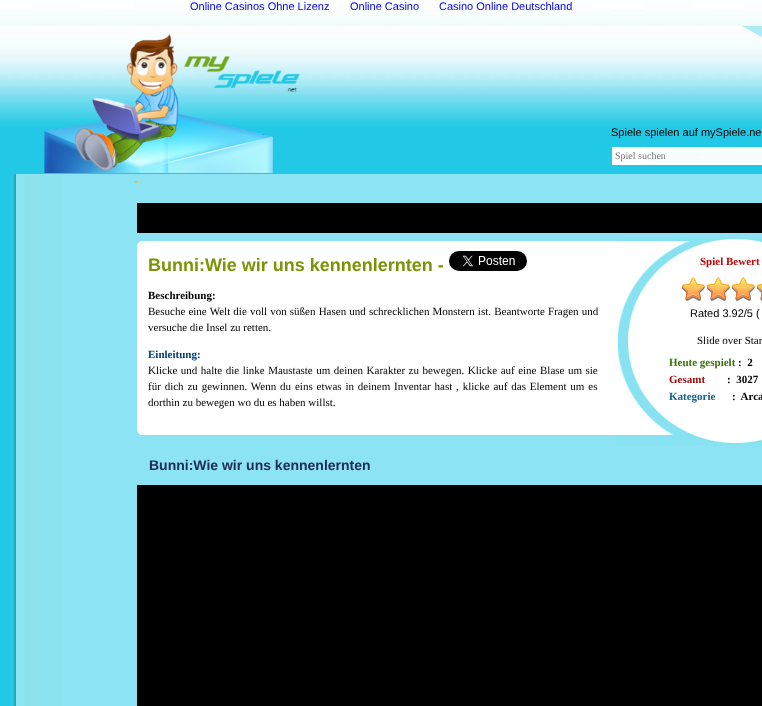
async function draw(canvas) {
  canvas.width = 762
  canvas.height = 706
  const ctx = canvas.getContext('2d')
  ctx.miterLimit = 4
  ctx.fontKerning = 'normal'
  async function loadImage(src) {
    const img = new Image()
    img.src = src
    await img.decode()
    return img
  }

  ctx.fillStyle = '#21c9e6'
  ctx.fillRect(0, 0, 762, 706)
  ctx.drawImage(await loadImage('image0.png'), 0, 0, 762, 26)
  ctx.font = '11px Liberation Sans'
  ctx.fillStyle = '#00e'
  ctx.fillText('Online Casinos Ohne Lizenz', 190, 10)
  ctx.fillText('Online Casino', 350, 10)
  ctx.fillText('Casino Online Deutschland', 439, 10)
  ctx.drawImage(await loadImage('image1.png'), 0, 26, 762, 101)
  ctx.drawImage(await loadImage('image2.png'), 44, 113, 229, 60)
  ctx.drawImage(await loadImage('image3.png'), 74, 34, 226, 137)
  ctx.drawImage(await loadImage('image4.png'), 742, 26, 20, 11)
  ctx.fillStyle = '#000'
  ctx.fillText('Spiele spielen auf mySpiele.ne', 611, 136)
  ctx.fillStyle = '#fff'
  ctx.fillRect(612, 147, 150, 18)
  ctx.drawImage(await loadImage('image5.png'), 647, 147, 115, 15)
  ctx.font = '10px Liberation Serif'
  ctx.fillStyle = '#747474'
  ctx.fillText('Spiel suchen', 615, 159)
  ctx.drawImage(await loadImage('image6.png'), 11, 174, 751, 532)
  ctx.fillStyle = '#ffb722'
  ctx.fillRect(135, 181, 2, 2)
  ctx.fillStyle = '#000'
  ctx.fillRect(137, 203, 625, 30)
  ctx.drawImage(await loadImage('image7.png'), 137, 241, 11, 194)
  ctx.fillStyle = '#fff'
  ctx.fillRect(148, 241, 468, 194)
  ctx.font = 'bold 18px Liberation Sans'
  ctx.fillStyle = '#7d9306'
  ctx.fillText('Bunni:Wie wir uns kennenlernten -', 148, 271)
  ctx.drawImage(await loadImage('image8.png'), 449, 251, 78, 20)
  ctx.font = 'bold 11px Liberation Serif'
  ctx.fillStyle = '#000'
  ctx.fillText('Beschreibung:', 148, 299)
  ctx.wordSpacing = '0.4px'
  ctx.font = '11px Liberation Serif'
  ctx.fillText('Besuche eine Welt die voll von süßen Hasen und schrecklichen Monstern ist. Beantworte Fragen und', 148, 315)
  ctx.wordSpacing = '0px'
  ctx.fillText('versuche die Insel zu retten.', 148, 331)
  ctx.font = 'bold 11px Liberation Serif'
  ctx.fillStyle = '#013d75'
  ctx.fillText('Einleitung:', 148, 358)
  ctx.wordSpacing = '0.75px'
  ctx.font = '11px Liberation Serif'
  ctx.fillStyle = '#000'
  ctx.fillText('Klicke und halte die linke Maustaste um deinen Karakter zu bewegen. Klicke auf eine Blase um sie', 148, 374)
  ctx.wordSpacing = '1.1px'
  ctx.fillText('für dich zu gewinnen. Wenn du eins etwas in deinem Inventar hast , klicke auf das Element um es', 148, 390)
  ctx.wordSpacing = '0px'
  ctx.fillText('dorthin zu bewegen wo du es haben willst.', 148, 406)
  ctx.drawImage(await loadImage('image9.png'), 616, 238, 146, 207)
  ctx.font = 'bold 11px Liberation Serif'
  ctx.fillStyle = '#bb0707'
  ctx.fillText('Spiel Bewert', 700, 265)
  ctx.drawImage(await loadImage('image10.png'), 682, 278, 80, 23)
  ctx.drawImage(await loadImage('image11.png'), 682, 278, 80, 23)
  ctx.drawImage(await loadImage('image12.png'), 682, 277, 80, 23)
  ctx.font = '11px Liberation Sans'
  ctx.fillStyle = '#000'
  ctx.fillText('Rated 3.92/5 (', 690, 317)
  ctx.font = '11px Liberation Serif'
  ctx.fillText('Slide over Star', 697, 344)
  ctx.font = 'bold 11px Liberation Serif'
  ctx.fillStyle = '#36720a'
  ctx.fillText('Heute gespielt', 669, 366)
  ctx.fillStyle = '#000'
  ctx.fillText(':  2', 738, 366)
  ctx.fillStyle = '#970505'
  ctx.fillText('Gesamt', 669, 383)
  ctx.fillStyle = '#000'
  ctx.fillText(':  3027', 727, 383)
  ctx.fillStyle = '#0e648c'
  ctx.fillText('Kategorie', 669, 400)
  ctx.fillStyle = '#000'
  ctx.fillText(':  Arca', 732, 400)
  ctx.font = 'bold 14px Liberation Sans'
  ctx.fillStyle = '#202e54'
  ctx.fillText('Bunni:Wie wir uns kennenlernten', 149, 470)
  ctx.fillStyle = '#000'
  ctx.fillRect(137, 485, 625, 221)
}

draw(document.querySelector('canvas'))
